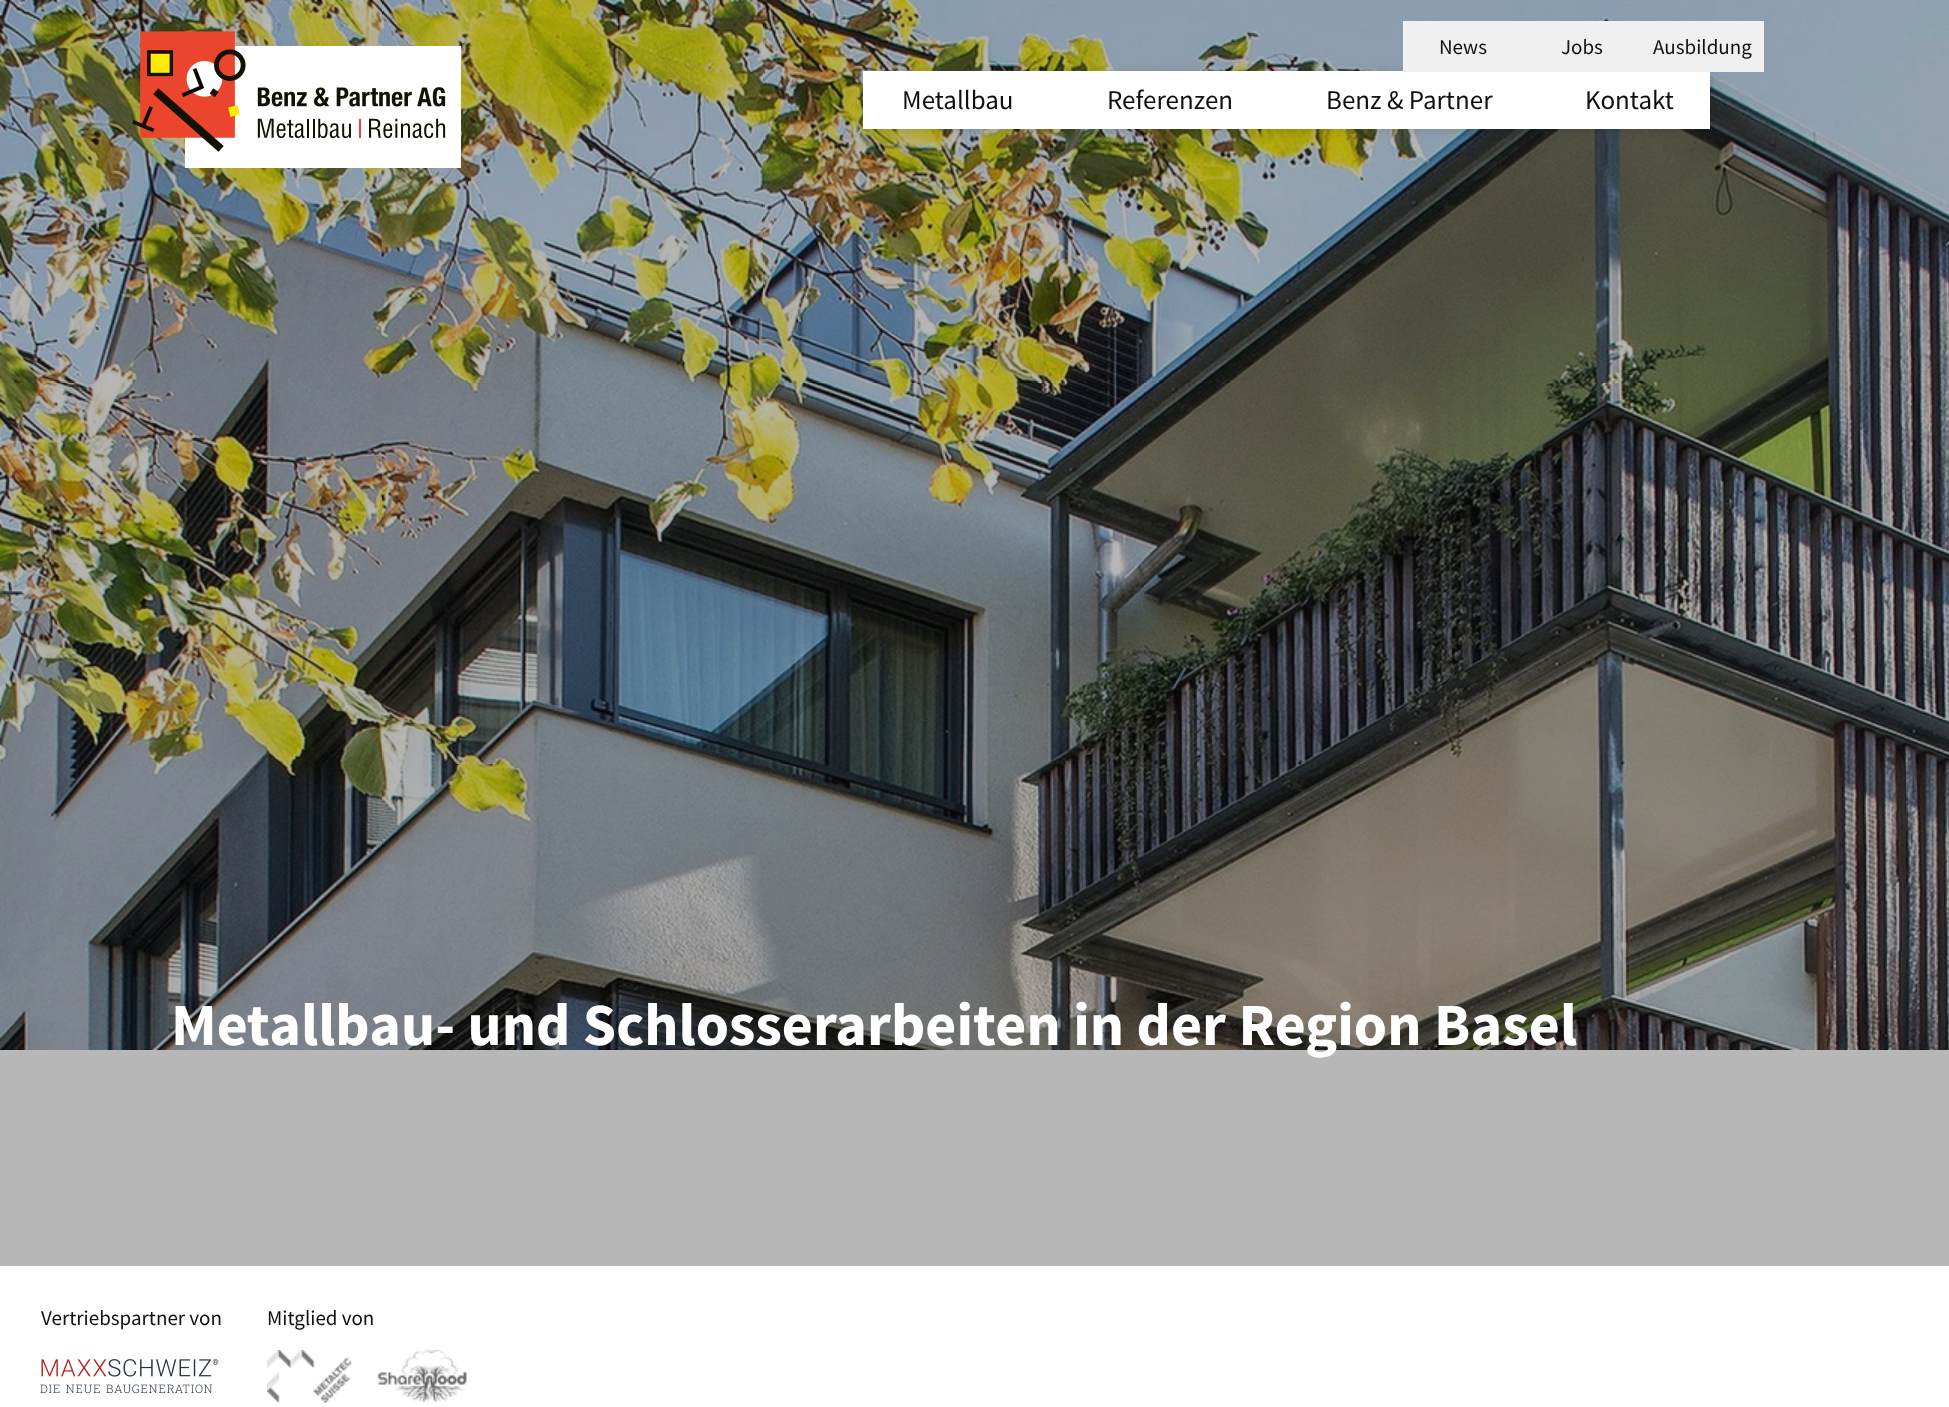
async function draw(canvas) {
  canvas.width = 1949
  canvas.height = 1407
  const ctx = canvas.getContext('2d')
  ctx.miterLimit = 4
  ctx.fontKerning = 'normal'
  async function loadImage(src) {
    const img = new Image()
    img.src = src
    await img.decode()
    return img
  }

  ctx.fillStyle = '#fff'
  ctx.fillRect(0, 0, 1949, 1407)
  ctx.fillStyle = '#b7b7b7'
  ctx.fillRect(0, 1050, 1949, 216)
  ctx.drawImage(await loadImage('image1.png'), 0, 0, 1949, 1050)
  ctx.drawImage(await loadImage('image0.png'), 132, 31, 329, 137)
  ctx.fillStyle = '#0000001a'
  ctx.filter = 'blur(4.5px)'
  ctx.beginPath()
  ctx.rect(864, 72, 848, 59)
  ctx.fill()
  ctx.filter = 'none'
  ctx.fillStyle = '#fff'
  ctx.fillRect(863, 71, 847, 58)
  ctx.fillStyle = '#f0f0f0'
  ctx.fillRect(1403, 21, 361, 51)
  ctx.font = '21px Source Sans Pro'
  ctx.fillStyle = '#101010'
  ctx.fillText('News', 1439, 54)
  ctx.fillText('Jobs', 1561, 54)
  ctx.fillText('Ausbildung', 1653, 54)
  ctx.font = '27px Source Sans Pro'
  ctx.fillText('Metallbau', 902, 109)
  ctx.fillText('Referenzen', 1107, 109)
  ctx.fillText('Benz & Partner', 1326, 109)
  ctx.fillText('Kontakt', 1585, 109)
  ctx.font = 'bold 60px Source Sans Pro'
  ctx.fillStyle = '#fff'
  ctx.fillText('Metallbau- und Schlosserarbeiten in der Region Basel', 171, 1045)
  ctx.font = '21px Source Sans Pro'
  ctx.fillStyle = '#101010'
  ctx.fillText('Vertriebspartner von', 41, 1325)
  ctx.fillText('Mitglied von', 267, 1325)
  ctx.drawImage(await loadImage('image2.png'), 40, 1359, 179, 35)
  ctx.drawImage(await loadImage('image3.png'), 267, 1350, 85, 53)
  ctx.drawImage(await loadImage('image4.png'), 377, 1349, 90, 54)
}

draw(document.querySelector('canvas'))
